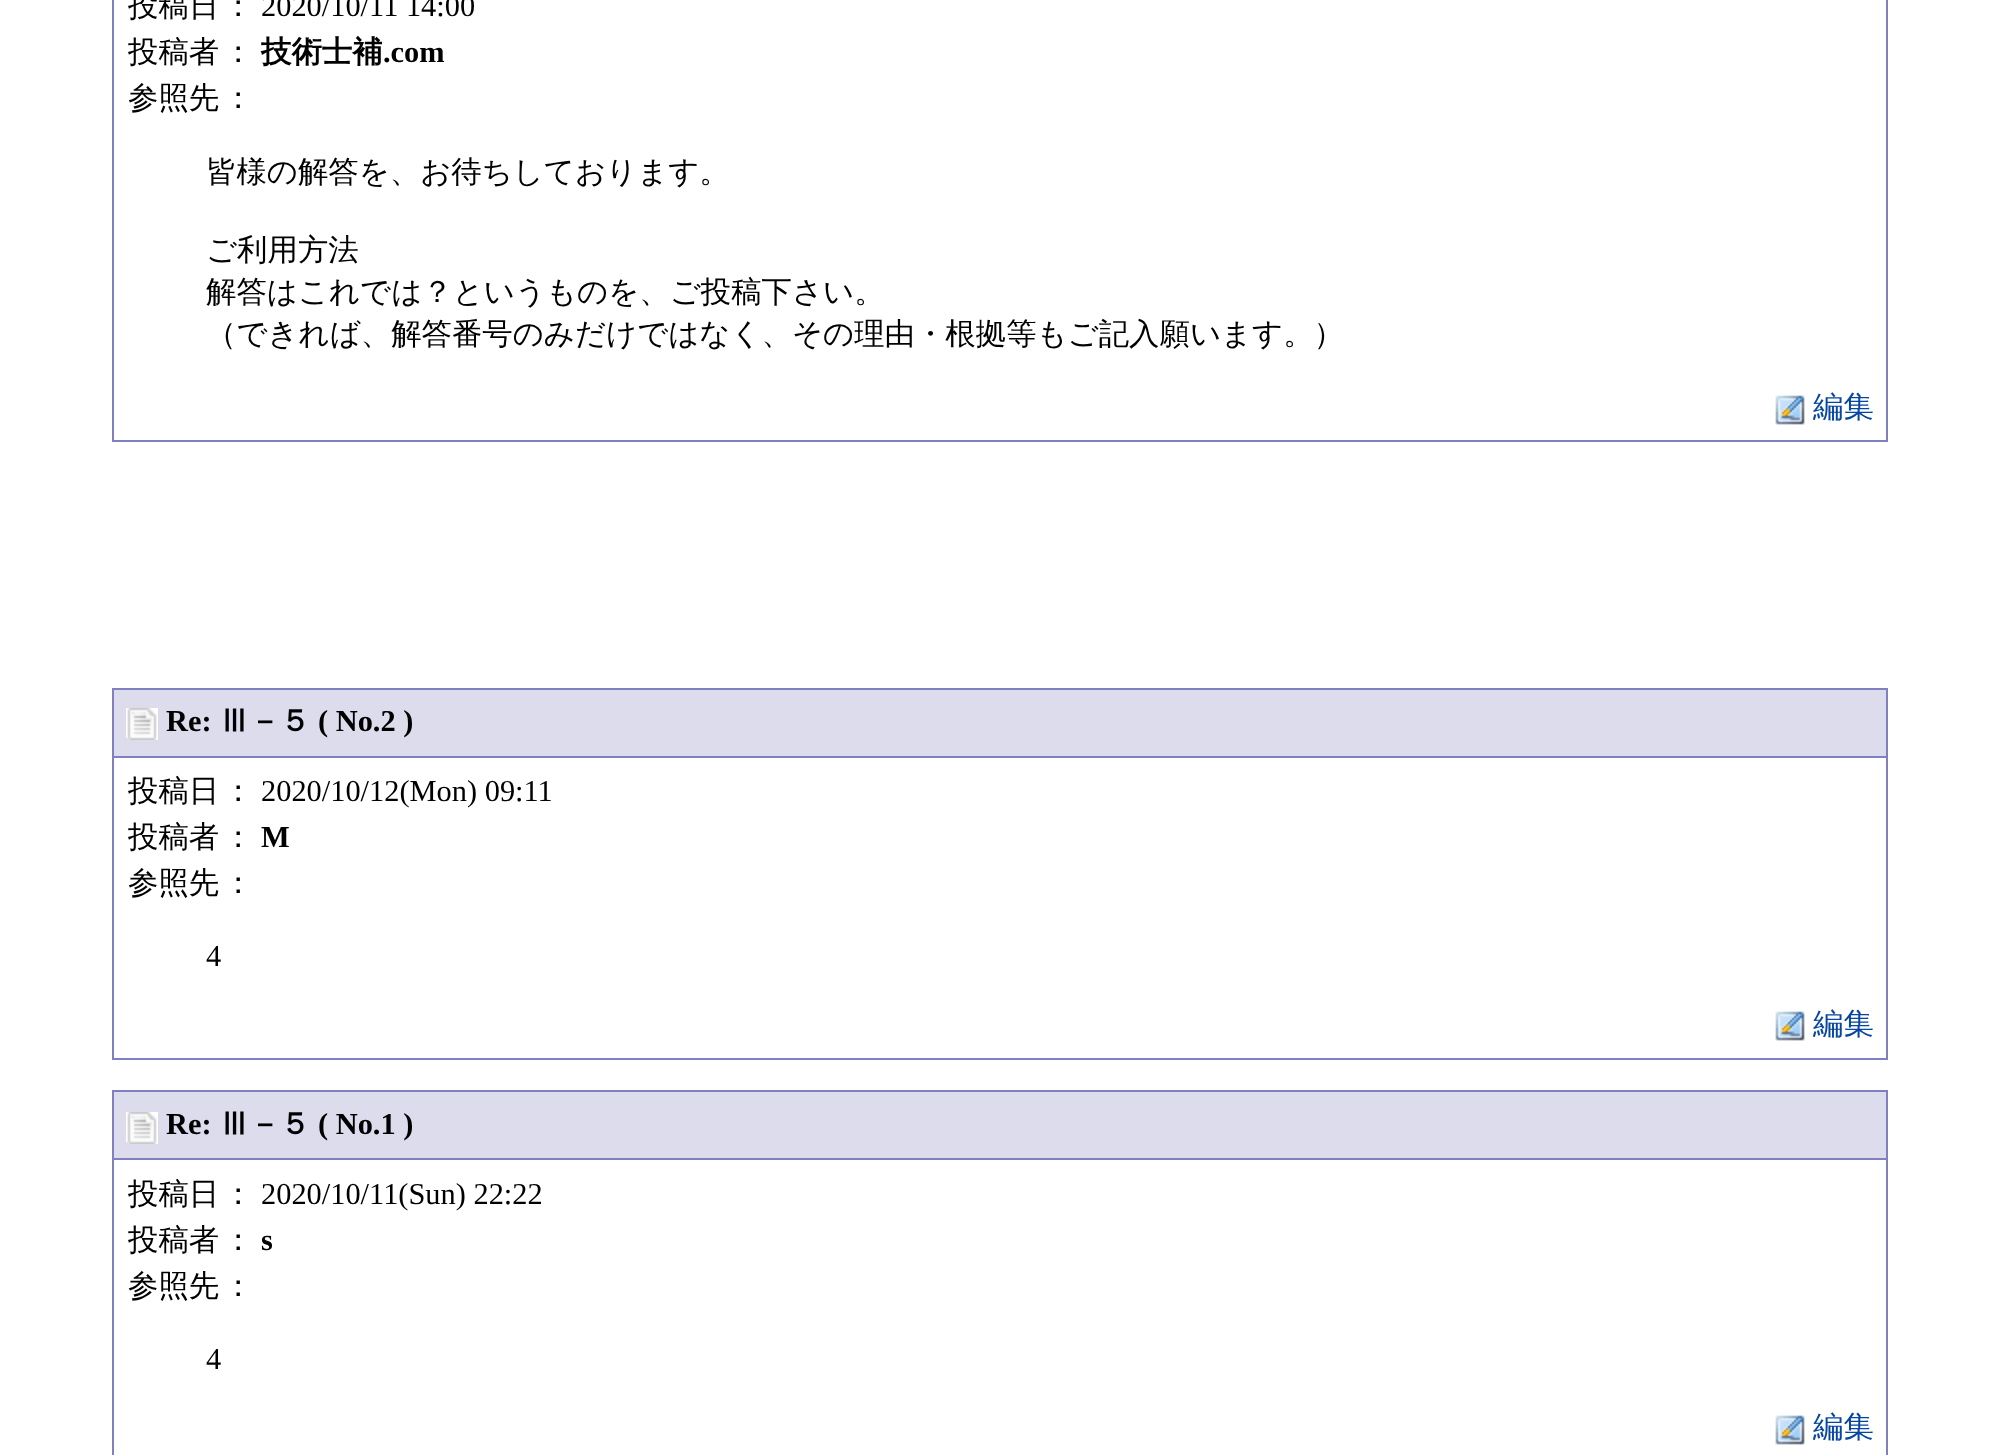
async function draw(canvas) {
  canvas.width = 1999
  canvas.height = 1455
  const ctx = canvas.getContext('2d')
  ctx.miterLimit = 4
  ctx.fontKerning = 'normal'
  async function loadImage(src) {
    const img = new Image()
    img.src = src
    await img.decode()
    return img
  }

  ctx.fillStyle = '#fff'
  ctx.fillRect(0, 0, 1999, 1455)
  ctx.fillStyle = '#8080c0'
  ctx.fillRect(1886, 0, 2, 442)
  ctx.fillRect(112, 440, 1776, 2)
  ctx.fillRect(112, 0, 2, 442)
  ctx.font = '500 30.4px WenQuanYi Zen Hei'
  ctx.fillStyle = '#000'
  ctx.fillText('投稿日', 128, 16)
  ctx.fillText('：', 223, 16)
  ctx.font = '30.4px Liberation Serif'
  ctx.fillText('2020/10/11 14:00', 261, 16)
  ctx.font = '500 30.4px WenQuanYi Zen Hei'
  ctx.fillText('投稿者', 128, 62)
  ctx.fillText('：', 223, 62)
  ctx.font = 'bold 30.4px WenQuanYi Zen Hei'
  ctx.fillText('技術士補', 261, 62)
  ctx.font = 'bold 30.4px Liberation Serif'
  ctx.fillText('.com', 383, 62)
  ctx.font = '500 30.4px WenQuanYi Zen Hei'
  ctx.fillText('参照先', 128, 108)
  ctx.fillText('：', 223, 108)
  ctx.fillText('皆様の解答を、お待ちしております。', 206, 182)
  ctx.fillText('ご利用方法', 206, 260)
  ctx.fillText('解答はこれでは？というものを、ご投稿下さい。', 206, 302)
  ctx.fillText('（できれば、解答番号のみだけではなく、その理由・根拠等もご記入願います。）', 206, 344)
  ctx.drawImage(await loadImage('image0.png'), 1775, 395, 30, 30)
  ctx.fillStyle = '#0646a0'
  ctx.fillText('編集', 1813, 417)
  ctx.fillStyle = '#dcdced'
  ctx.beginPath()
  ctx.rect(113, 689, 1774, 68)
  ctx.fill()
  ctx.strokeStyle = '#8080c0'
  ctx.lineWidth = 2
  ctx.stroke()
  ctx.drawImage(await loadImage('image1.png'), 126, 708, 32, 32)
  ctx.font = 'bold 30.4px Liberation Serif'
  ctx.fillStyle = '#000'
  ctx.fillText('Re:', 166, 731)
  ctx.font = 'bold 30.4px WenQuanYi Zen Hei'
  ctx.fillText('Ⅲ－５', 219, 731)
  ctx.font = 'bold 30.4px Liberation Serif'
  ctx.fillText('( No.2 )', 318, 731)
  ctx.fillStyle = '#8080c0'
  ctx.fillRect(1886, 758, 2, 302)
  ctx.fillRect(112, 1058, 1776, 2)
  ctx.fillRect(112, 758, 2, 302)
  ctx.font = '500 30.4px WenQuanYi Zen Hei'
  ctx.fillStyle = '#000'
  ctx.fillText('投稿日', 128, 801)
  ctx.fillText('：', 223, 801)
  ctx.font = '30.4px Liberation Serif'
  ctx.fillText('2020/10/12(Mon) 09:11', 261, 801)
  ctx.font = '500 30.4px WenQuanYi Zen Hei'
  ctx.fillText('投稿者', 128, 847)
  ctx.fillText('：', 223, 847)
  ctx.font = 'bold 30.4px Liberation Serif'
  ctx.fillText('M', 261, 847)
  ctx.font = '500 30.4px WenQuanYi Zen Hei'
  ctx.fillText('参照先', 128, 893)
  ctx.fillText('：', 223, 893)
  ctx.font = '30.4px Liberation Serif'
  ctx.fillText('4', 206, 966)
  ctx.drawImage(await loadImage('image0.png'), 1775, 1011, 30, 30)
  ctx.font = '500 30.4px WenQuanYi Zen Hei'
  ctx.fillStyle = '#0646a0'
  ctx.fillText('編集', 1813, 1034)
  ctx.fillStyle = '#dcdced'
  ctx.beginPath()
  ctx.rect(113, 1091, 1774, 68)
  ctx.fill()
  ctx.stroke()
  ctx.drawImage(await loadImage('image1.png'), 126, 1112, 32, 32)
  ctx.font = 'bold 30.4px Liberation Serif'
  ctx.fillStyle = '#000'
  ctx.fillText('Re:', 166, 1134)
  ctx.font = 'bold 30.4px WenQuanYi Zen Hei'
  ctx.fillText('Ⅲ－５', 219, 1134)
  ctx.font = 'bold 30.4px Liberation Serif'
  ctx.fillText('( No.1 )', 318, 1134)
  ctx.fillStyle = '#8080c0'
  ctx.fillRect(1886, 1160, 2, 295)
  ctx.fillRect(112, 1160, 2, 295)
  ctx.font = '500 30.4px WenQuanYi Zen Hei'
  ctx.fillStyle = '#000'
  ctx.fillText('投稿日', 128, 1204)
  ctx.fillText('：', 223, 1204)
  ctx.font = '30.4px Liberation Serif'
  ctx.fillText('2020/10/11(Sun) 22:22', 261, 1204)
  ctx.font = '500 30.4px WenQuanYi Zen Hei'
  ctx.fillText('投稿者', 128, 1250)
  ctx.fillText('：', 223, 1250)
  ctx.font = 'bold 30.4px Liberation Serif'
  ctx.fillText('s', 261, 1250)
  ctx.font = '500 30.4px WenQuanYi Zen Hei'
  ctx.fillText('参照先', 128, 1296)
  ctx.fillText('：', 223, 1296)
  ctx.font = '30.4px Liberation Serif'
  ctx.fillText('4', 206, 1369)
  ctx.drawImage(await loadImage('image0.png'), 1775, 1415, 30, 30)
  ctx.font = '500 30.4px WenQuanYi Zen Hei'
  ctx.fillStyle = '#0646a0'
  ctx.fillText('編集', 1813, 1437)
}

draw(document.querySelector('canvas'))
